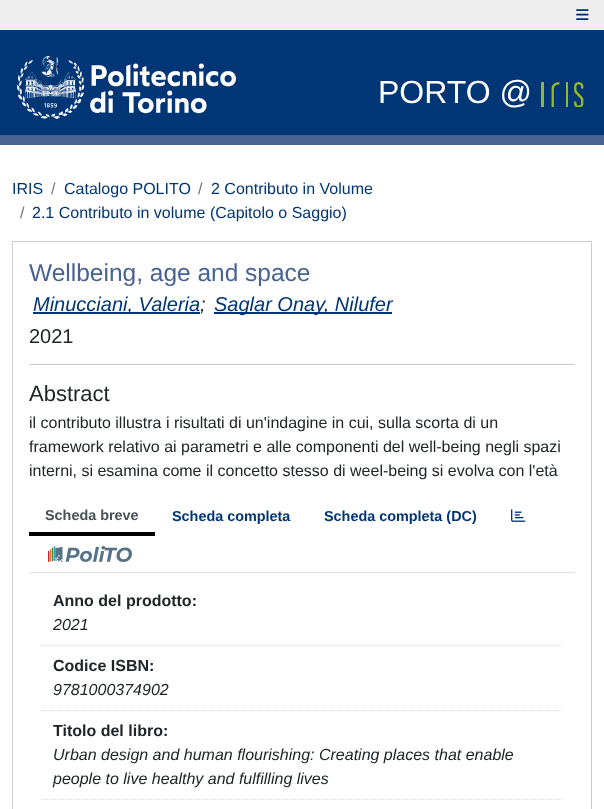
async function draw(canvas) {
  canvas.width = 604
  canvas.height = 809
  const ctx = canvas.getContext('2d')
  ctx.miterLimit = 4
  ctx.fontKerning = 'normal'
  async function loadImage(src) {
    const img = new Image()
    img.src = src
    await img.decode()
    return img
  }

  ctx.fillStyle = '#fff'
  ctx.fillRect(0, 0, 604, 809)
  ctx.fillStyle = '#eee'
  ctx.fillRect(0, 0, 604, 30)
  ctx.drawImage(await loadImage('image0.png'), 576, 9, 13, 11)
  ctx.fillStyle = '#003576'
  ctx.fillRect(0, 30, 604, 105)
  ctx.fillStyle = '#486293'
  ctx.fillRect(0, 135, 604, 10)
  ctx.drawImage(await loadImage('image1.png'), 17, 56, 219, 63)
  ctx.font = '32px Liberation Sans'
  ctx.fillStyle = '#fff'
  ctx.fillText('PORTO @', 378, 103)
  ctx.drawImage(await loadImage('image2.png'), 541, 82, 43, 25)
  ctx.font = '16px Liberation Sans'
  ctx.fillStyle = '#003576'
  ctx.fillText('IRIS', 12, 194)
  ctx.fillStyle = '#6c757d'
  ctx.fillText('/', 51, 194)
  ctx.fillStyle = '#003576'
  ctx.fillText('Catalogo POLITO', 64, 194)
  ctx.fillStyle = '#6c757d'
  ctx.fillText('/', 198, 194)
  ctx.fillStyle = '#003576'
  ctx.fillText('2 Contributo in Volume', 211, 194)
  ctx.fillStyle = '#6c757d'
  ctx.fillText('/', 20, 218)
  ctx.fillStyle = '#003576'
  ctx.fillText('2.1 Contributo in volume (Capitolo o Saggio)', 32, 218)
  ctx.strokeStyle = '#ccc'
  ctx.strokeRect(12.5, 241.5, 579, 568)
  ctx.font = '24.5px Liberation Sans'
  ctx.fillStyle = '#486293'
  ctx.fillText('Wellbeing, age and space', 29, 281)
  ctx.fillStyle = '#003576'
  ctx.fillRect(33, 312, 167, 2)
  ctx.font = 'italic 20px Liberation Sans'
  ctx.fillText('Minucciani, Valeria', 33, 311)
  ctx.fillStyle = '#212529'
  ctx.fillText(';', 200, 311)
  ctx.fillStyle = '#003576'
  ctx.fillRect(214, 312, 178, 2)
  ctx.fillText('Saglar Onay, Nilufer', 214, 311)
  ctx.font = '20px Liberation Sans'
  ctx.fillStyle = '#212529'
  ctx.fillText('2021', 29, 343)
  ctx.fillStyle = '#c8c9ca'
  ctx.fillRect(29, 364, 546, 1)
  ctx.font = '22px Liberation Sans'
  ctx.fillStyle = '#212529'
  ctx.fillText('Abstract', 29, 401)
  ctx.font = '16px Liberation Sans'
  ctx.fillText('il contributo illustra i risultati di un\'indagine in cui, sulla scorta di un', 29, 428)
  ctx.fillText('framework relativo ai parametri e alle componenti del well-being negli spazi', 29, 452)
  ctx.fillText('interni, si esamina come il concetto stesso di weel-being si evolva con l\'età', 29, 476)
  ctx.fillStyle = '#dee2e6'
  ctx.fillRect(29, 572, 546, 1)
  ctx.fillStyle = '#000'
  ctx.fillRect(29, 532, 126, 4)
  ctx.font = 'bold 14.4px Liberation Sans'
  ctx.fillStyle = '#495057'
  ctx.fillText('Scheda breve', 45, 520)
  ctx.fillStyle = '#003576'
  ctx.fillText('Scheda completa', 172, 521)
  ctx.fillText('Scheda completa (DC)', 324, 521)
  ctx.drawImage(await loadImage('image3.png'), 511, 509, 15, 13)
  ctx.drawImage(await loadImage('image4.png'), 48, 546, 84, 16)
  ctx.beginPath()
  ctx.moveTo(41, 645.5)
  ctx.lineTo(563, 645.5)
  ctx.strokeStyle = '#ddd'
  ctx.setLineDash([1, 1])
  ctx.stroke()
  ctx.font = 'bold 16px Liberation Sans'
  ctx.fillStyle = '#212529'
  ctx.fillText('Anno del prodotto:', 53, 606)
  ctx.font = 'italic 16px Liberation Sans'
  ctx.fillText('2021', 53, 630)
  ctx.beginPath()
  ctx.moveTo(41, 710.5)
  ctx.lineTo(563, 710.5)
  ctx.stroke()
  ctx.font = 'bold 16px Liberation Sans'
  ctx.fillText('Codice ISBN:', 53, 671)
  ctx.font = 'italic 16px Liberation Sans'
  ctx.fillText('9781000374902', 53, 695)
  ctx.beginPath()
  ctx.moveTo(41, 799.5)
  ctx.lineTo(563, 799.5)
  ctx.stroke()
  ctx.font = 'bold 16px Liberation Sans'
  ctx.fillText('Titolo del libro:', 53, 736)
  ctx.font = 'italic 16px Liberation Sans'
  ctx.fillText('Urban design and human flourishing: Creating places that enable', 53, 760)
  ctx.fillText('people to live healthy and fulfilling lives', 53, 784)
}

draw(document.querySelector('canvas'))
